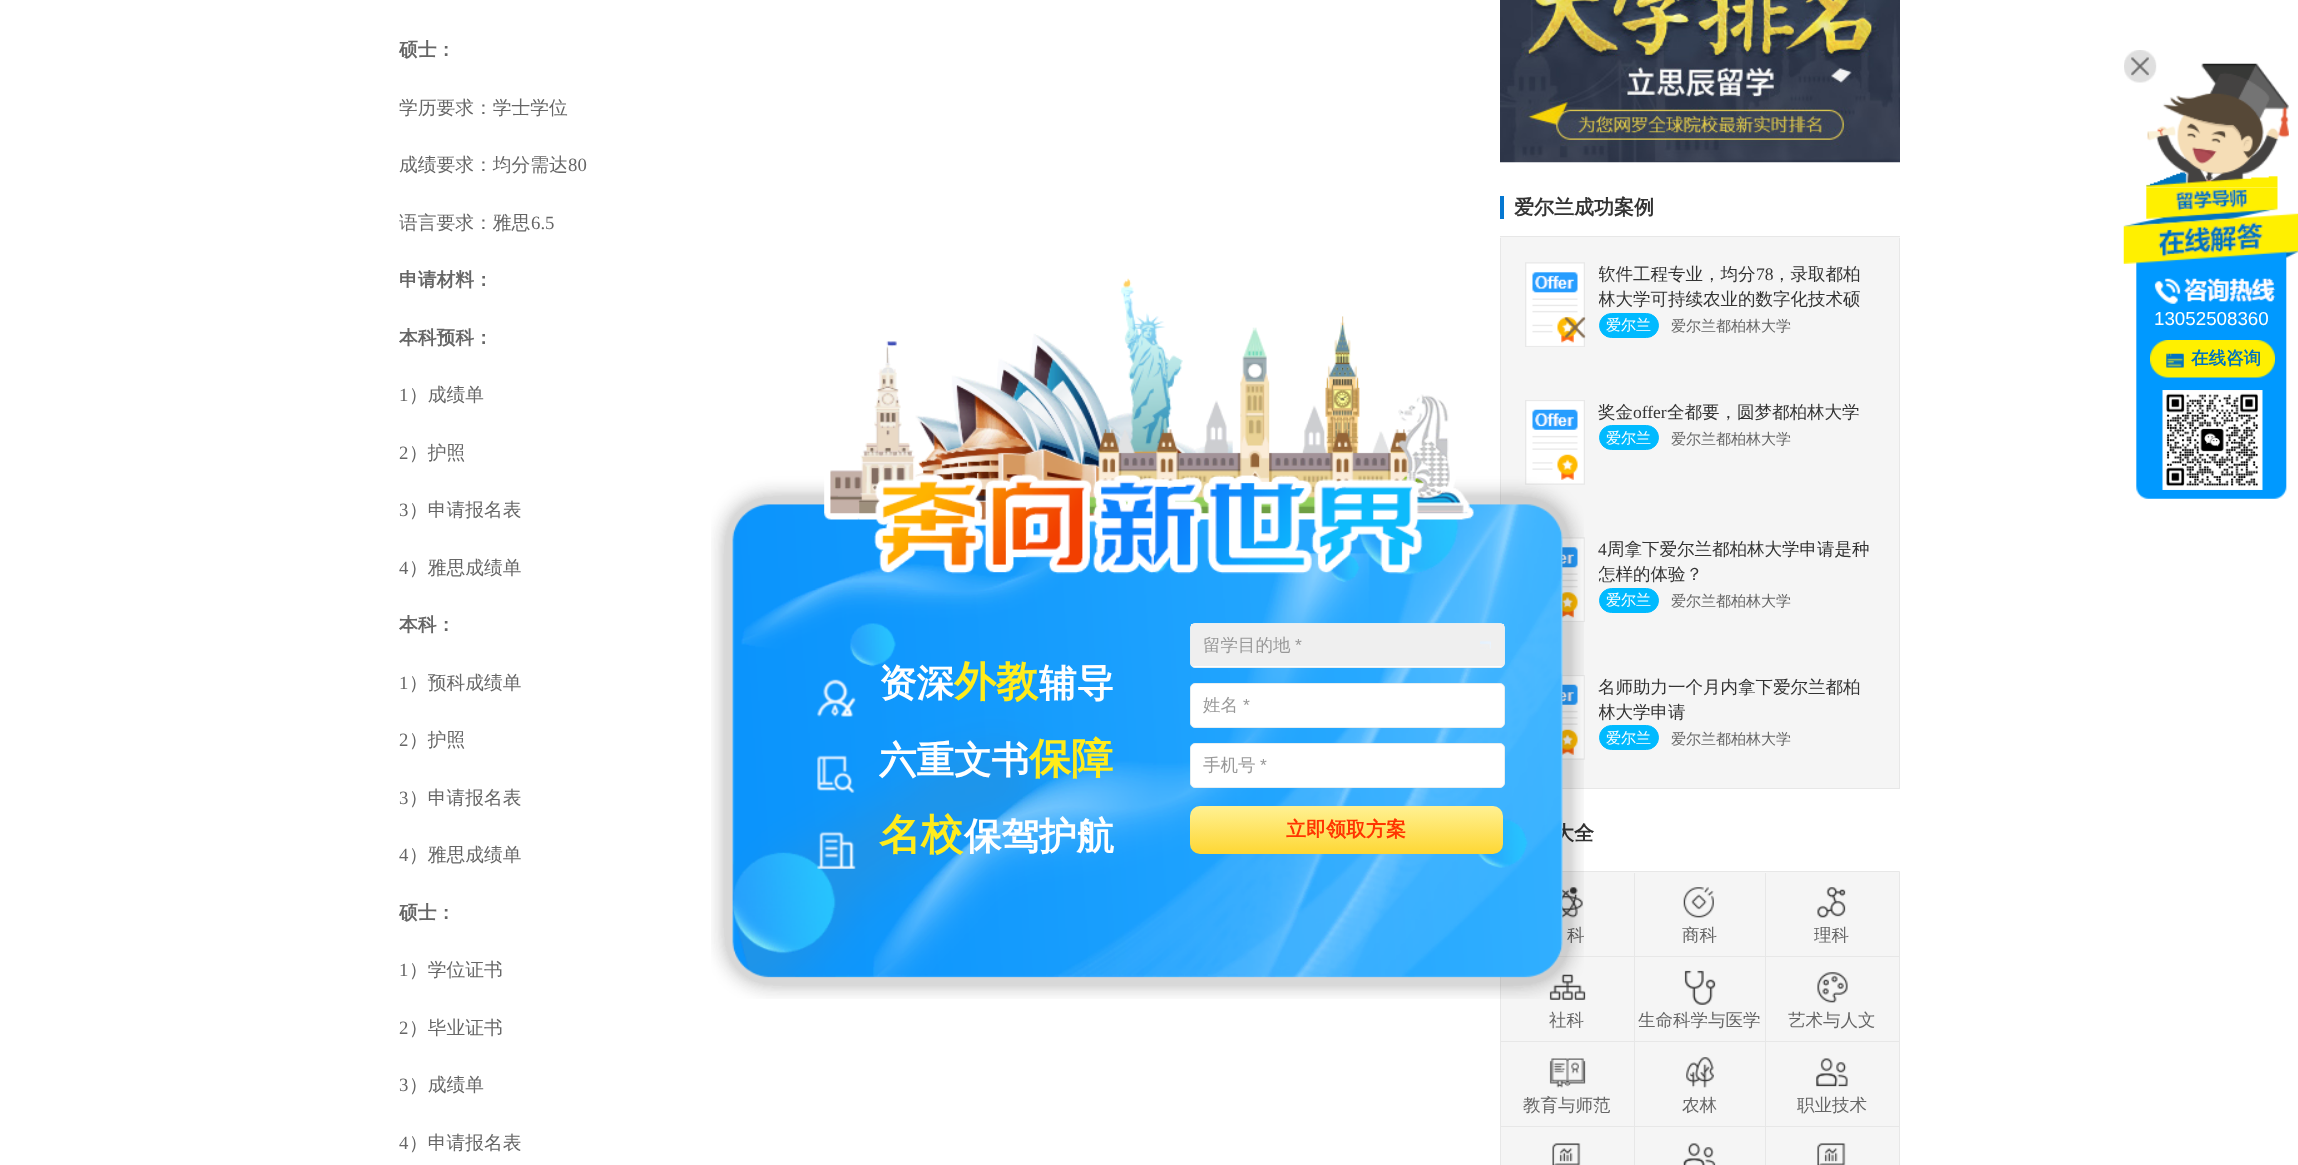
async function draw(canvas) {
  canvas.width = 2298
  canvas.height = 1165
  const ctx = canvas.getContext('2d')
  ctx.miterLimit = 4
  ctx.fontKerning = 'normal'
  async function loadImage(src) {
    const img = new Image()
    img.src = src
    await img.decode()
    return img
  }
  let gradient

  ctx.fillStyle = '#fff'
  ctx.fillRect(0, 0, 2298, 1165)
  ctx.font = 'bold 18.75px WenQuanYi Zen Hei'
  ctx.fillStyle = '#666'
  ctx.fillText('硕士：', 399, 56)
  ctx.font = '500 18.75px WenQuanYi Zen Hei'
  ctx.fillText('学历要求：学士学位', 399, 114)
  ctx.fillText('成绩要求：均分需达', 399, 171)
  ctx.font = '18.75px Liberation Serif'
  ctx.fillText('80', 568, 171)
  ctx.font = '500 18.75px WenQuanYi Zen Hei'
  ctx.fillText('语言要求：雅思', 399, 229)
  ctx.font = '18.75px Liberation Serif'
  ctx.fillText('6.5', 531, 229)
  ctx.font = 'bold 18.75px WenQuanYi Zen Hei'
  ctx.fillText('申请材料：', 399, 286)
  ctx.fillText('本科预科：', 399, 344)
  ctx.font = '18.75px Liberation Serif'
  ctx.fillText('1', 399, 401)
  ctx.font = '500 18.75px WenQuanYi Zen Hei'
  ctx.fillText('）成绩单', 409, 401)
  ctx.font = '18.75px Liberation Serif'
  ctx.fillText('2', 399, 459)
  ctx.font = '500 18.75px WenQuanYi Zen Hei'
  ctx.fillText('）护照', 409, 459)
  ctx.font = '18.75px Liberation Serif'
  ctx.fillText('3', 399, 516)
  ctx.font = '500 18.75px WenQuanYi Zen Hei'
  ctx.fillText('）申请报名表', 409, 516)
  ctx.font = '18.75px Liberation Serif'
  ctx.fillText('4', 399, 574)
  ctx.font = '500 18.75px WenQuanYi Zen Hei'
  ctx.fillText('）雅思成绩单', 409, 574)
  ctx.font = 'bold 18.75px WenQuanYi Zen Hei'
  ctx.fillText('本科：', 399, 631)
  ctx.font = '18.75px Liberation Serif'
  ctx.fillText('1', 399, 689)
  ctx.font = '500 18.75px WenQuanYi Zen Hei'
  ctx.fillText('）预科成绩单', 409, 689)
  ctx.font = '18.75px Liberation Serif'
  ctx.fillText('2', 399, 746)
  ctx.font = '500 18.75px WenQuanYi Zen Hei'
  ctx.fillText('）护照', 409, 746)
  ctx.font = '18.75px Liberation Serif'
  ctx.fillText('3', 399, 804)
  ctx.font = '500 18.75px WenQuanYi Zen Hei'
  ctx.fillText('）申请报名表', 409, 804)
  ctx.font = '18.75px Liberation Serif'
  ctx.fillText('4', 399, 861)
  ctx.font = '500 18.75px WenQuanYi Zen Hei'
  ctx.fillText('）雅思成绩单', 409, 861)
  ctx.font = 'bold 18.75px WenQuanYi Zen Hei'
  ctx.fillText('硕士：', 399, 919)
  ctx.font = '18.75px Liberation Serif'
  ctx.fillText('1', 399, 976)
  ctx.font = '500 18.75px WenQuanYi Zen Hei'
  ctx.fillText('）学位证书', 409, 976)
  ctx.font = '18.75px Liberation Serif'
  ctx.fillText('2', 399, 1034)
  ctx.font = '500 18.75px WenQuanYi Zen Hei'
  ctx.fillText('）毕业证书', 409, 1034)
  ctx.font = '18.75px Liberation Serif'
  ctx.fillText('3', 399, 1091)
  ctx.font = '500 18.75px WenQuanYi Zen Hei'
  ctx.fillText('）成绩单', 409, 1091)
  ctx.font = '18.75px Liberation Serif'
  ctx.fillText('4', 399, 1149)
  ctx.font = '500 18.75px WenQuanYi Zen Hei'
  ctx.fillText('）申请报名表', 409, 1149)
  ctx.drawImage(await loadImage('image0.png'), 1500, 0, 400, 163)
  ctx.fillStyle = '#0577d1'
  ctx.fillRect(1500, 196, 4, 23)
  ctx.font = 'bold 20px WenQuanYi Zen Hei'
  ctx.fillStyle = '#333'
  ctx.fillText('爱尔兰成功案例', 1514, 214)
  ctx.fillStyle = '#f5f5f5'
  ctx.fillRect(1500, 237, 400, 551)
  ctx.fillStyle = '#e7e7e7'
  ctx.fillRect(1500, 236, 400, 1)
  ctx.fillRect(1562, 788, 338, 1)
  ctx.drawImage(await loadImage('image1.png'), 1525, 262, 60, 85)
  ctx.fillRect(1899, 238, 1, 550)
  ctx.fillRect(1500, 238, 1, 275)
  ctx.save()
  ctx.beginPath()
  ctx.rect(1599, 263, 275, 50)
  ctx.clip()
  ctx.font = '500 17.5px WenQuanYi Zen Hei'
  ctx.fillStyle = '#333'
  ctx.fillText('软件工程专业，均分', 1598, 280)
  ctx.restore()
  ctx.font = '17.5px Liberation Serif'
  ctx.fillStyle = '#333'
  ctx.fillText('78', 1756, 280)
  ctx.font = '500 17.5px WenQuanYi Zen Hei'
  ctx.fillText('，录取都柏', 1773, 280)
  ctx.save()
  ctx.beginPath()
  ctx.rect(1599, 263, 275, 50)
  ctx.clip()
  ctx.fillText('林大学可持续农业的数字化技术硕', 1598, 305)
  ctx.restore()
  ctx.fillStyle = '#00baff'
  ctx.beginPath()
  ctx.roundRect(1599.5, 313.5, 59, 24, 12)
  ctx.fill()
  ctx.strokeStyle = '#00baff'
  ctx.stroke()
  ctx.font = '500 15px WenQuanYi Zen Hei'
  ctx.fillStyle = '#fff'
  ctx.fillText('爱尔兰', 1606, 330)
  ctx.fillStyle = '#666'
  ctx.fillText('爱尔兰都柏林大学', 1671, 331)
  ctx.drawImage(await loadImage('image2.png'), 1525, 400, 60, 85)
  ctx.font = '500 17.5px WenQuanYi Zen Hei'
  ctx.fillStyle = '#333'
  ctx.fillText('奖金', 1598, 418)
  ctx.font = '17.5px Liberation Serif'
  ctx.fillText('offer', 1633, 418)
  ctx.font = '500 17.5px WenQuanYi Zen Hei'
  ctx.fillText('全都要，圆梦都柏林大学', 1667, 418)
  ctx.fillStyle = '#00baff'
  ctx.beginPath()
  ctx.roundRect(1599.5, 425.5, 59, 24, 12)
  ctx.fill()
  ctx.stroke()
  ctx.font = '500 15px WenQuanYi Zen Hei'
  ctx.fillStyle = '#fff'
  ctx.fillText('爱尔兰', 1606, 443)
  ctx.fillStyle = '#666'
  ctx.fillText('爱尔兰都柏林大学', 1671, 444)
  ctx.drawImage(await loadImage('image3.png'), 1561, 537, 24, 85)
  ctx.font = '17.5px Liberation Serif'
  ctx.fillStyle = '#333'
  ctx.fillText('4', 1598, 555)
  ctx.font = '500 17.5px WenQuanYi Zen Hei'
  ctx.fillText('周拿下爱尔兰都柏林大学申请是种', 1607, 555)
  ctx.save()
  ctx.beginPath()
  ctx.rect(1599, 538, 275, 50)
  ctx.clip()
  ctx.fillText('怎样的体验？', 1598, 580)
  ctx.restore()
  ctx.fillStyle = '#00baff'
  ctx.beginPath()
  ctx.roundRect(1599.5, 588.5, 59, 24, 12)
  ctx.fill()
  ctx.stroke()
  ctx.font = '500 15px WenQuanYi Zen Hei'
  ctx.fillStyle = '#fff'
  ctx.fillText('爱尔兰', 1606, 605)
  ctx.fillStyle = '#666'
  ctx.fillText('爱尔兰都柏林大学', 1671, 606)
  ctx.drawImage(await loadImage('image4.png'), 1562, 675, 23, 85)
  ctx.font = '500 17.5px WenQuanYi Zen Hei'
  ctx.fillStyle = '#333'
  ctx.fillText('名师助力一个月内拿下爱尔兰都柏', 1598, 693)
  ctx.save()
  ctx.beginPath()
  ctx.rect(1599, 675, 275, 50)
  ctx.clip()
  ctx.fillText('林大学申请', 1598, 718)
  ctx.restore()
  ctx.fillStyle = '#00baff'
  ctx.beginPath()
  ctx.roundRect(1599.5, 725.5, 59, 24, 12)
  ctx.fill()
  ctx.stroke()
  ctx.font = '500 15px WenQuanYi Zen Hei'
  ctx.fillStyle = '#fff'
  ctx.fillText('爱尔兰', 1606, 743)
  ctx.fillStyle = '#666'
  ctx.fillText('爱尔兰都柏林大学', 1671, 744)
  ctx.font = 'bold 20px WenQuanYi Zen Hei'
  ctx.fillStyle = '#333'
  ctx.fillText('大全', 1554, 840)
  ctx.fillStyle = '#f5f5f5'
  ctx.beginPath()
  ctx.rect(1500.5, 871.5, 399, 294)
  ctx.fill()
  ctx.strokeStyle = '#e7e7e7'
  ctx.stroke()
  ctx.fillStyle = '#e7e7e7'
  ctx.fillRect(1557, 956, 342, 1)
  ctx.fillRect(1501, 1041, 398, 1)
  ctx.fillRect(1501, 1126, 398, 1)
  ctx.fillRect(1634, 873, 1, 292)
  ctx.fillRect(1765, 873, 1, 292)
  ctx.drawImage(await loadImage('image5.png'), 1562, 887, 21, 31)
  ctx.font = '500 17.5px WenQuanYi Zen Hei'
  ctx.fillStyle = '#666'
  ctx.fillText('科', 1567, 941)
  ctx.drawImage(await loadImage('image6.png'), 1683, 887, 31, 31)
  ctx.fillText('商科', 1682, 941)
  ctx.drawImage(await loadImage('image7.png'), 1817, 887, 29, 31)
  ctx.fillText('理科', 1814, 941)
  ctx.drawImage(await loadImage('image8.png'), 1549, 974, 37, 26)
  ctx.fillText('社科', 1549, 1026)
  ctx.drawImage(await loadImage('image9.png'), 1684, 970, 32, 35)
  ctx.fillText('生命科学与医学', 1638, 1026)
  ctx.drawImage(await loadImage('image10.png'), 1817, 972, 31, 31)
  ctx.fillText('艺术与人文', 1788, 1026)
  ctx.drawImage(await loadImage('image11.png'), 1549, 1058, 37, 30)
  ctx.fillText('教育与师范', 1523, 1111)
  ctx.drawImage(await loadImage('image12.png'), 1686, 1057, 28, 31)
  ctx.fillText('农林', 1682, 1111)
  ctx.drawImage(await loadImage('image13.png'), 1816, 1058, 32, 29)
  ctx.fillText('职业技术', 1797, 1111)
  ctx.drawImage(await loadImage('image14.png'), 1552, 1143, 29, 22)
  ctx.drawImage(await loadImage('image15.png'), 1683, 1143, 33, 22)
  ctx.drawImage(await loadImage('image16.png'), 1817, 1143, 29, 22)
  ctx.drawImage(await loadImage('image17.png'), 2123, 187, 175, 312)
  ctx.drawImage(await loadImage('image19.png'), 2146, 63, 143, 125)
  ctx.drawImage(await loadImage('image18.png'), 2124, 50, 33, 33)
  ctx.font = '18.75px Liberation Sans'
  ctx.fillStyle = '#fff'
  ctx.fillText('13052508360', 2154, 325)
  ctx.drawImage(await loadImage('image20.png'), 2150, 340, 125, 38)
  ctx.font = 'bold 17.5px WenQuanYi Zen Hei'
  ctx.fillStyle = '#0073bf'
  ctx.fillText('在线咨询', 2191, 364)
  ctx.drawImage(await loadImage('image21.png'), 2162, 390, 101, 100)
  ctx.drawImage(await loadImage('image22.png'), 711, 278, 873, 721)
  ctx.drawImage(await loadImage('image23.png'), 1564, 317, 22, 22)
  ctx.drawImage(await loadImage('image24.png'), 817, 679, 39, 38)
  ctx.font = 'bold 37.5px WenQuanYi Zen Hei'
  ctx.fillStyle = '#fff'
  ctx.fillText('资深', 879, 696)
  ctx.font = 'bold 42px WenQuanYi Zen Hei'
  ctx.fillStyle = '#ffec1c'
  ctx.fillText('外教', 954, 696)
  ctx.font = 'bold 37.5px WenQuanYi Zen Hei'
  ctx.fillStyle = '#fff'
  ctx.fillText('辅导', 1039, 696)
  ctx.drawImage(await loadImage('image25.png'), 817, 755, 38, 38)
  ctx.fillText('六重文书', 879, 773)
  ctx.font = 'bold 42px WenQuanYi Zen Hei'
  ctx.fillStyle = '#ffec1c'
  ctx.fillText('保障', 1029, 773)
  ctx.drawImage(await loadImage('image26.png'), 817, 831, 39, 38)
  ctx.fillText('名校', 879, 849)
  ctx.font = 'bold 37.5px WenQuanYi Zen Hei'
  ctx.fillStyle = '#fff'
  ctx.fillText('保驾护航', 964, 849)
  ctx.beginPath()
  ctx.roundRect(1190.5, 623.5, 314, 44, 4.5)
  ctx.fill()
  ctx.strokeStyle = '#e7eef1'
  ctx.stroke()
  ctx.fillStyle = '#efefef'
  ctx.fillRect(1191, 624, 313, 42)
  ctx.font = '500 17.5px WenQuanYi Zen Hei'
  ctx.fillStyle = '#999'
  ctx.fillText('留学目的地', 1203, 651)
  ctx.font = '17.5px Liberation Sans'
  ctx.fillText('*', 1295, 651)
  ctx.drawImage(await loadImage('image27.png'), 1480, 641, 11, 8)
  ctx.fillStyle = '#fff'
  ctx.beginPath()
  ctx.roundRect(1190.5, 683.5, 314, 44, 4.5)
  ctx.fill()
  ctx.stroke()
  ctx.font = '500 17.5px WenQuanYi Zen Hei'
  ctx.fillStyle = '#999'
  ctx.fillText('姓名', 1203, 711)
  ctx.font = '17.5px Liberation Sans'
  ctx.fillText('*', 1243, 711)
  ctx.fillStyle = '#fff'
  ctx.beginPath()
  ctx.roundRect(1190.5, 743.5, 314, 44, 4.5)
  ctx.fill()
  ctx.stroke()
  ctx.font = '500 17.5px WenQuanYi Zen Hei'
  ctx.fillStyle = '#999'
  ctx.fillText('手机号', 1203, 771)
  ctx.font = '17.5px Liberation Sans'
  ctx.fillText('*', 1260, 771)
  gradient = ctx.createLinearGradient(1346, 806, 1346, 854)
  gradient.addColorStop(0, '#fff193')
  gradient.addColorStop(1, '#fed734')
  ctx.fillStyle = gradient
  ctx.beginPath()
  ctx.roundRect(1190, 806, 313, 48, 10)
  ctx.fill()
  ctx.font = 'bold 20px WenQuanYi Zen Hei'
  ctx.fillStyle = '#ff3400'
  ctx.fillText('立即领取方案', 1286, 836)
}

draw(document.querySelector('canvas'))
